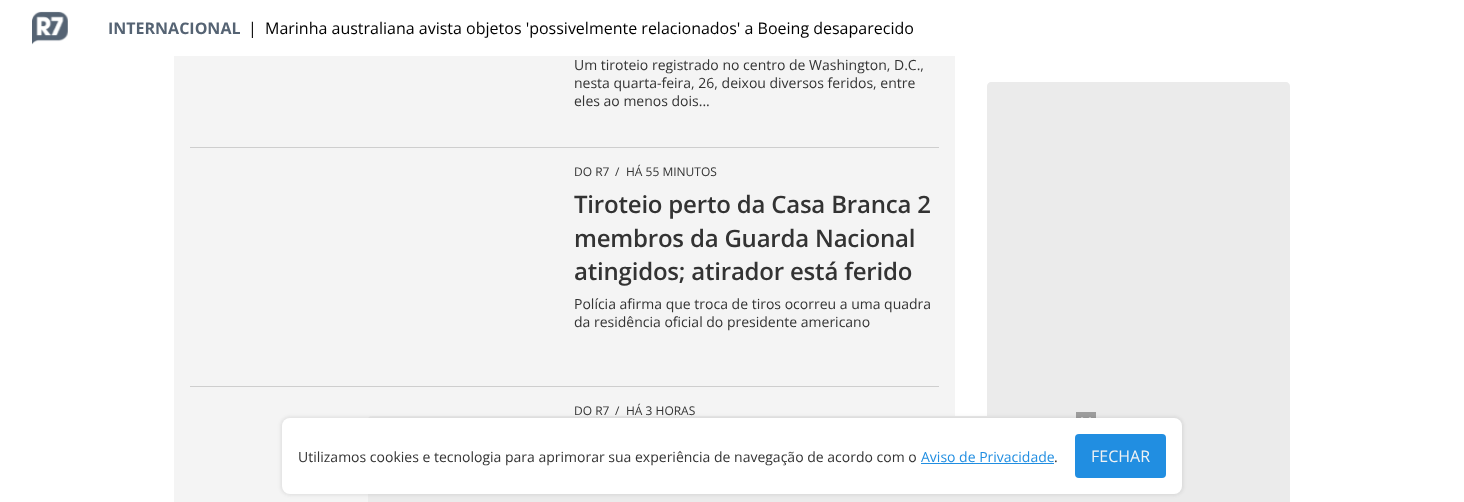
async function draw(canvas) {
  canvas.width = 1464
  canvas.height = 502
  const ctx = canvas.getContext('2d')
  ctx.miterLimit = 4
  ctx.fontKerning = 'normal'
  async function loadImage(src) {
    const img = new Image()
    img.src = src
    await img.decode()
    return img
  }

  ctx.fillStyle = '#fff'
  ctx.fillRect(0, 0, 1464, 502)
  ctx.drawImage(await loadImage('image0.png'), 32, 11, 36, 34)
  ctx.font = 'bold 16px Open Sans'
  ctx.fillStyle = '#556373'
  ctx.fillText('INTERNACIONAL', 108, 34)
  ctx.font = '16px Open Sans'
  ctx.fillStyle = '#000'
  ctx.fillText('|', 248, 34)
  ctx.fillText('Marinha australiana avista objetos \'possivelmente relacionados\' a Boeing desaparecido', 265, 34)
  ctx.fillStyle = '#f4f4f4'
  ctx.fillRect(174, 56, 781, 446)
  ctx.fillStyle = '#cecece'
  ctx.fillRect(190, 147, 749, 1)
  ctx.font = '14px Open Sans'
  ctx.fillStyle = '#333'
  ctx.fillText('Um tiroteio registrado no centro de Washington, D.C.,', 574, 70)
  ctx.fillText('nesta quarta-feira, 26, deixou diversos feridos, entre', 574, 88)
  ctx.fillText('eles ao menos dois...', 574, 106)
  ctx.fillStyle = '#cecece'
  ctx.fillRect(190, 386, 749, 1)
  ctx.font = '12px Open Sans'
  ctx.fillStyle = '#333'
  ctx.fillText('DO R7', 574, 176)
  ctx.fillText('/', 615, 176)
  ctx.fillText('HÁ 55 MINUTOS', 626, 176)
  ctx.letterSpacing = '-0.2px'
  ctx.font = '600 24px Open Sans'
  ctx.fillText('Tiroteio perto da Casa Branca 2', 574, 213)
  ctx.fillText('membros da Guarda Nacional', 574, 247)
  ctx.fillText('atingidos; atirador está ferido', 574, 280)
  ctx.letterSpacing = '0px'
  ctx.font = '14px Open Sans'
  ctx.fillText('Polícia afirma que troca de tiros ocorreu a uma quadra', 574, 309)
  ctx.fillText('da residência oficial do presidente americano', 574, 327)
  ctx.font = '12px Open Sans'
  ctx.fillText('DO R7', 574, 415)
  ctx.fillText('/', 615, 415)
  ctx.fillText('HÁ 3 HORAS', 626, 415)
  ctx.fillStyle = '#ebebeb'
  ctx.beginPath()
  ctx.moveTo(991, 82)
  ctx.lineTo(1286, 82)
  ctx.bezierCurveTo(1288, 82, 1290, 84, 1290, 86)
  ctx.lineTo(1290, 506)
  ctx.lineTo(987, 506)
  ctx.lineTo(987, 86)
  ctx.bezierCurveTo(987, 84, 989, 82, 991, 82)
  ctx.closePath()
  ctx.fill()
  ctx.beginPath()
  ctx.roundRect(368, 416, 728, 86, [4, 4, 0, 0])
  ctx.fill()
  ctx.fillStyle = '#9d9d9d'
  ctx.fillRect(1076, 412, 20, 6)
  ctx.drawImage(await loadImage('image1.png'), 1081, 417, 10, 1)
  ctx.fillStyle = '#33333314'
  ctx.filter = 'blur(1.5px)'
  ctx.beginPath()
  ctx.roundRect(280, 416, 904, 80, 10)
  ctx.fill()
  ctx.filter = 'none'
  ctx.fillStyle = '#fff'
  ctx.beginPath()
  ctx.roundRect(282, 418, 900, 76, 8)
  ctx.fill()
  ctx.font = '14px Open Sans'
  ctx.fillStyle = '#333'
  ctx.fillText('Utilizamos cookies e tecnologia para aprimorar sua experiência de navegação de acordo com o', 298, 462)
  ctx.fillStyle = '#218ee1'
  ctx.fillText('Aviso de Privacidade', 921, 462)
  ctx.fillRect(921, 463, 133, 1)
  ctx.fillStyle = '#333'
  ctx.fillText('.', 1054, 462)
  ctx.fillStyle = '#218ee1'
  ctx.beginPath()
  ctx.roundRect(1075, 434, 91, 44, 4)
  ctx.fill()
  ctx.font = '16px Open Sans'
  ctx.fillStyle = '#f0f2f3'
  ctx.fillText('FECHAR', 1091, 462)
}

draw(document.querySelector('canvas'))
